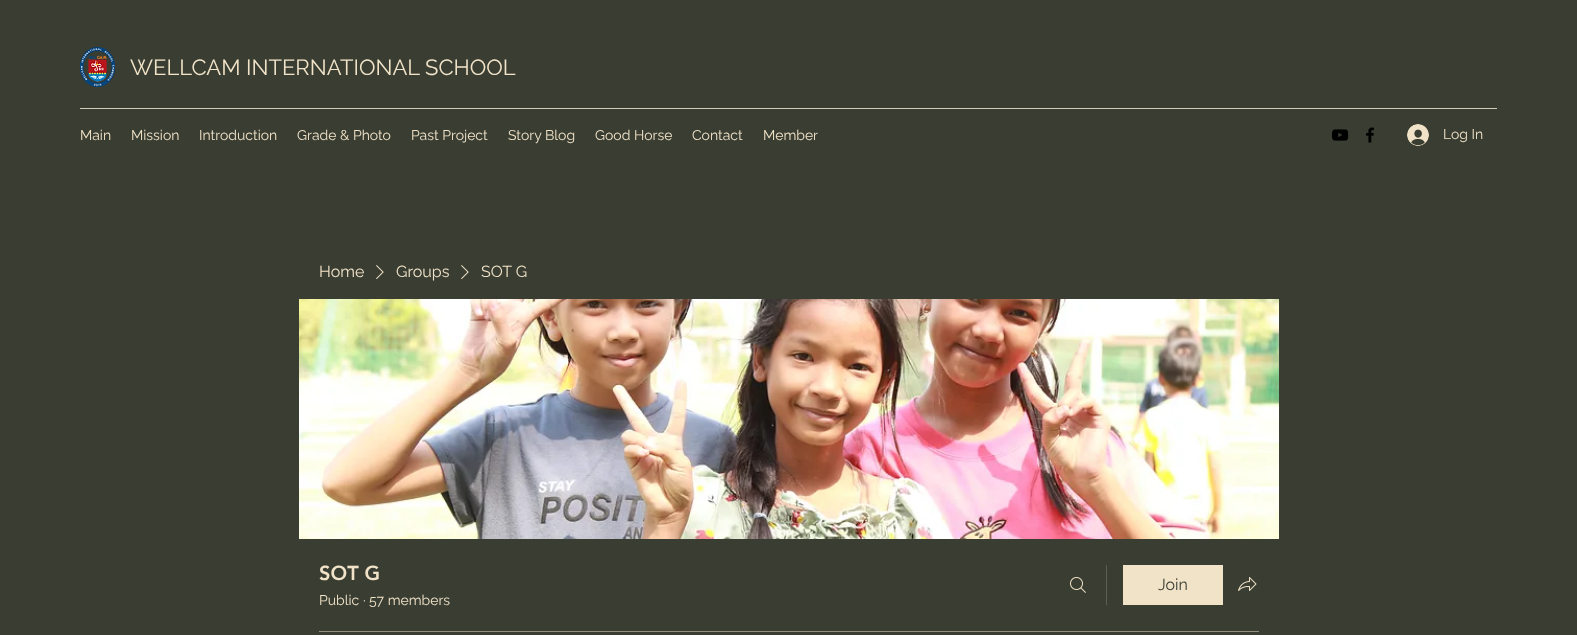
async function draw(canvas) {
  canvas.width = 1577
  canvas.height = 635
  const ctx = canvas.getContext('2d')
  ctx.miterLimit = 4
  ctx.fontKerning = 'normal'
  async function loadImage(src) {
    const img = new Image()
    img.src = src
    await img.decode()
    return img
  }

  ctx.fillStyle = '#393d32'
  ctx.fillRect(0, 0, 1577, 635)
  ctx.drawImage(await loadImage('image0.png'), 80, 47, 35, 40)
  ctx.font = '22px Raleway'
  ctx.fillStyle = '#f1e3c8'
  ctx.fillText('WELLCAM INTERNATIONAL SCHOOL', 130, 75)
  ctx.fillStyle = '#d5cab2'
  ctx.fillRect(80, 108, 1417, 1)
  ctx.font = '14px Raleway'
  ctx.fillStyle = '#f1e3c8'
  ctx.fillText('Main', 80, 140)
  ctx.fillText('Mission', 131, 140)
  ctx.fillText('Introduction', 199, 140)
  ctx.fillText('Grade & Photo', 297, 140)
  ctx.fillText('Past Project', 411, 140)
  ctx.fillText('Story Blog', 508, 140)
  ctx.fillText('Good Horse', 595, 140)
  ctx.fillText('Contact', 692, 140)
  ctx.fillText('Member', 763, 140)
  ctx.drawImage(await loadImage('image1.png'), 1331, 129, 18, 12)
  ctx.drawImage(await loadImage('image2.png'), 1366, 127, 8, 16)
  ctx.drawImage(await loadImage('image3.png'), 1407, 124, 22, 22)
  ctx.fillText('Log In', 1443, 139)
  ctx.font = '16px Raleway'
  ctx.fillText('Home', 319, 277)
  ctx.drawImage(await loadImage('image4.png'), 376, 265, 8, 14)
  ctx.fillText('Groups', 396, 277)
  ctx.drawImage(await loadImage('image4.png'), 461, 265, 8, 14)
  ctx.fillText('SOT G', 481, 277)
  ctx.drawImage(await loadImage('image5.png'), 299, 299, 980, 240)
  ctx.font = '900 20px "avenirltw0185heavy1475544"'
  ctx.fillText('SOT G', 319, 580)
  ctx.font = '14px Raleway'
  ctx.fillText('Public', 319, 605)
  ctx.fillText('·', 363, 605)
  ctx.fillText('57 members', 369, 605)
  ctx.drawImage(await loadImage('image6.png'), 1070, 577, 16, 16)
  ctx.fillStyle = '#5e5e50'
  ctx.fillRect(1106, 565, 1, 40)
  ctx.fillStyle = '#f1e3c8'
  ctx.fillRect(1123, 565, 100, 40)
  ctx.font = '16px Raleway'
  ctx.fillStyle = '#393d32'
  ctx.fillText('Join', 1158, 590)
  ctx.drawImage(await loadImage('image7.png'), 1238, 577, 19, 14)
  ctx.fillStyle = '#95907d'
  ctx.fillRect(319, 631, 940, 1)
}

draw(document.querySelector('canvas'))
